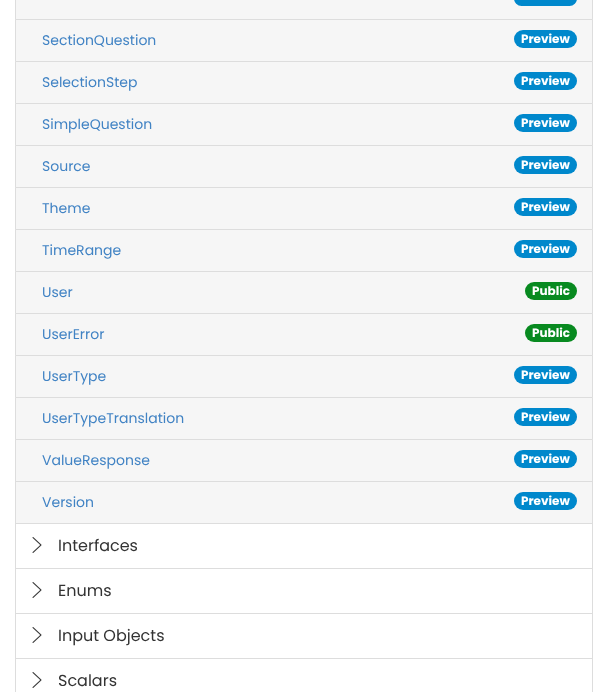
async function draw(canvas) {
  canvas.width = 608
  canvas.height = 692
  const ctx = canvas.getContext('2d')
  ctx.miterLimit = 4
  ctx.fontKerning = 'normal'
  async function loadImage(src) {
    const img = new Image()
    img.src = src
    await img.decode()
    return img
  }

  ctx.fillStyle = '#fff'
  ctx.fillRect(0, 0, 608, 692)
  ctx.fillStyle = '#f6f6f6'
  ctx.beginPath()
  ctx.rect(15.5, -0.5, 577, 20)
  ctx.fill()
  ctx.strokeStyle = '#ddd'
  ctx.stroke()
  ctx.fillStyle = '#08c'
  ctx.beginPath()
  ctx.roundRect(514, -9, 63, 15, 9)
  ctx.fill()
  ctx.fillStyle = '#f6f6f6'
  ctx.beginPath()
  ctx.rect(15.5, 19.5, 577, 42)
  ctx.fill()
  ctx.stroke()
  ctx.font = '14px Poppins'
  ctx.fillStyle = '#4183c4'
  ctx.fillText('SectionQuestion', 42, 45)
  ctx.fillStyle = '#08c'
  ctx.beginPath()
  ctx.roundRect(514, 30, 63, 18, 9)
  ctx.fill()
  ctx.font = 'bold 12px Poppins'
  ctx.fillStyle = '#fff'
  ctx.fillText('Preview', 521, 43)
  ctx.fillStyle = '#f6f6f6'
  ctx.beginPath()
  ctx.rect(15.5, 61.5, 577, 42)
  ctx.fill()
  ctx.stroke()
  ctx.font = '14px Poppins'
  ctx.fillStyle = '#4183c4'
  ctx.fillText('SelectionStep', 42, 87)
  ctx.fillStyle = '#08c'
  ctx.beginPath()
  ctx.roundRect(514, 72, 63, 18, 9)
  ctx.fill()
  ctx.font = 'bold 12px Poppins'
  ctx.fillStyle = '#fff'
  ctx.fillText('Preview', 521, 85)
  ctx.fillStyle = '#f6f6f6'
  ctx.beginPath()
  ctx.rect(15.5, 103.5, 577, 42)
  ctx.fill()
  ctx.stroke()
  ctx.font = '14px Poppins'
  ctx.fillStyle = '#4183c4'
  ctx.fillText('SimpleQuestion', 42, 129)
  ctx.fillStyle = '#08c'
  ctx.beginPath()
  ctx.roundRect(514, 114, 63, 18, 9)
  ctx.fill()
  ctx.font = 'bold 12px Poppins'
  ctx.fillStyle = '#fff'
  ctx.fillText('Preview', 521, 127)
  ctx.fillStyle = '#f6f6f6'
  ctx.beginPath()
  ctx.rect(15.5, 145.5, 577, 42)
  ctx.fill()
  ctx.stroke()
  ctx.font = '14px Poppins'
  ctx.fillStyle = '#4183c4'
  ctx.fillText('Source', 42, 171)
  ctx.fillStyle = '#08c'
  ctx.beginPath()
  ctx.roundRect(514, 156, 63, 18, 9)
  ctx.fill()
  ctx.font = 'bold 12px Poppins'
  ctx.fillStyle = '#fff'
  ctx.fillText('Preview', 521, 169)
  ctx.fillStyle = '#f6f6f6'
  ctx.beginPath()
  ctx.rect(15.5, 187.5, 577, 42)
  ctx.fill()
  ctx.stroke()
  ctx.font = '14px Poppins'
  ctx.fillStyle = '#4183c4'
  ctx.fillText('Theme', 42, 213)
  ctx.fillStyle = '#08c'
  ctx.beginPath()
  ctx.roundRect(514, 198, 63, 18, 9)
  ctx.fill()
  ctx.font = 'bold 12px Poppins'
  ctx.fillStyle = '#fff'
  ctx.fillText('Preview', 521, 211)
  ctx.fillStyle = '#f6f6f6'
  ctx.beginPath()
  ctx.rect(15.5, 229.5, 577, 42)
  ctx.fill()
  ctx.stroke()
  ctx.font = '14px Poppins'
  ctx.fillStyle = '#4183c4'
  ctx.fillText('TimeRange', 42, 255)
  ctx.fillStyle = '#08c'
  ctx.beginPath()
  ctx.roundRect(514, 240, 63, 18, 9)
  ctx.fill()
  ctx.font = 'bold 12px Poppins'
  ctx.fillStyle = '#fff'
  ctx.fillText('Preview', 521, 253)
  ctx.fillStyle = '#f6f6f6'
  ctx.beginPath()
  ctx.rect(15.5, 271.5, 577, 42)
  ctx.fill()
  ctx.stroke()
  ctx.font = '14px Poppins'
  ctx.fillStyle = '#4183c4'
  ctx.fillText('User', 42, 297)
  ctx.fillStyle = '#088a20'
  ctx.beginPath()
  ctx.roundRect(525, 282, 52, 18, 9)
  ctx.fill()
  ctx.font = 'bold 12px Poppins'
  ctx.fillStyle = '#fff'
  ctx.fillText('Public', 532, 295)
  ctx.fillStyle = '#f6f6f6'
  ctx.beginPath()
  ctx.rect(15.5, 313.5, 577, 42)
  ctx.fill()
  ctx.stroke()
  ctx.font = '14px Poppins'
  ctx.fillStyle = '#4183c4'
  ctx.fillText('UserError', 42, 339)
  ctx.fillStyle = '#088a20'
  ctx.beginPath()
  ctx.roundRect(525, 324, 52, 18, 9)
  ctx.fill()
  ctx.font = 'bold 12px Poppins'
  ctx.fillStyle = '#fff'
  ctx.fillText('Public', 532, 337)
  ctx.fillStyle = '#f6f6f6'
  ctx.beginPath()
  ctx.rect(15.5, 355.5, 577, 42)
  ctx.fill()
  ctx.stroke()
  ctx.font = '14px Poppins'
  ctx.fillStyle = '#4183c4'
  ctx.fillText('UserType', 42, 381)
  ctx.fillStyle = '#08c'
  ctx.beginPath()
  ctx.roundRect(514, 366, 63, 18, 9)
  ctx.fill()
  ctx.font = 'bold 12px Poppins'
  ctx.fillStyle = '#fff'
  ctx.fillText('Preview', 521, 379)
  ctx.fillStyle = '#f6f6f6'
  ctx.beginPath()
  ctx.rect(15.5, 397.5, 577, 42)
  ctx.fill()
  ctx.stroke()
  ctx.font = '14px Poppins'
  ctx.fillStyle = '#4183c4'
  ctx.fillText('UserTypeTranslation', 42, 423)
  ctx.fillStyle = '#08c'
  ctx.beginPath()
  ctx.roundRect(514, 408, 63, 18, 9)
  ctx.fill()
  ctx.font = 'bold 12px Poppins'
  ctx.fillStyle = '#fff'
  ctx.fillText('Preview', 521, 421)
  ctx.fillStyle = '#f6f6f6'
  ctx.beginPath()
  ctx.rect(15.5, 439.5, 577, 42)
  ctx.fill()
  ctx.stroke()
  ctx.font = '14px Poppins'
  ctx.fillStyle = '#4183c4'
  ctx.fillText('ValueResponse', 42, 465)
  ctx.fillStyle = '#08c'
  ctx.beginPath()
  ctx.roundRect(514, 450, 63, 18, 9)
  ctx.fill()
  ctx.font = 'bold 12px Poppins'
  ctx.fillStyle = '#fff'
  ctx.fillText('Preview', 521, 463)
  ctx.fillStyle = '#f6f6f6'
  ctx.fillRect(16, 482, 576, 41)
  ctx.fillStyle = '#ddd'
  ctx.fillRect(592, 481, 1, 42)
  ctx.fillRect(15, 481, 1, 42)
  ctx.font = '14px Poppins'
  ctx.fillStyle = '#4183c4'
  ctx.fillText('Version', 42, 507)
  ctx.fillStyle = '#08c'
  ctx.beginPath()
  ctx.roundRect(514, 492, 63, 18, 9)
  ctx.fill()
  ctx.font = 'bold 12px Poppins'
  ctx.fillStyle = '#fff'
  ctx.fillText('Preview', 521, 505)
  ctx.strokeRect(15.5, 523.5, 577, 45)
  ctx.drawImage(await loadImage('image0.png'), 32, 537, 10, 16)
  ctx.font = '16px Poppins'
  ctx.fillStyle = '#333'
  ctx.fillText('Interfaces', 58, 551)
  ctx.strokeRect(15.5, 568.5, 577, 45)
  ctx.drawImage(await loadImage('image0.png'), 32, 582, 10, 16)
  ctx.fillText('Enums', 58, 596)
  ctx.strokeRect(15.5, 613.5, 577, 45)
  ctx.drawImage(await loadImage('image0.png'), 32, 627, 10, 16)
  ctx.fillText('Input Objects', 58, 641)
  ctx.strokeRect(15.5, 658.5, 577, 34)
  ctx.drawImage(await loadImage('image0.png'), 32, 672, 10, 16)
  ctx.fillText('Scalars', 58, 686)
}

draw(document.querySelector('canvas'))
